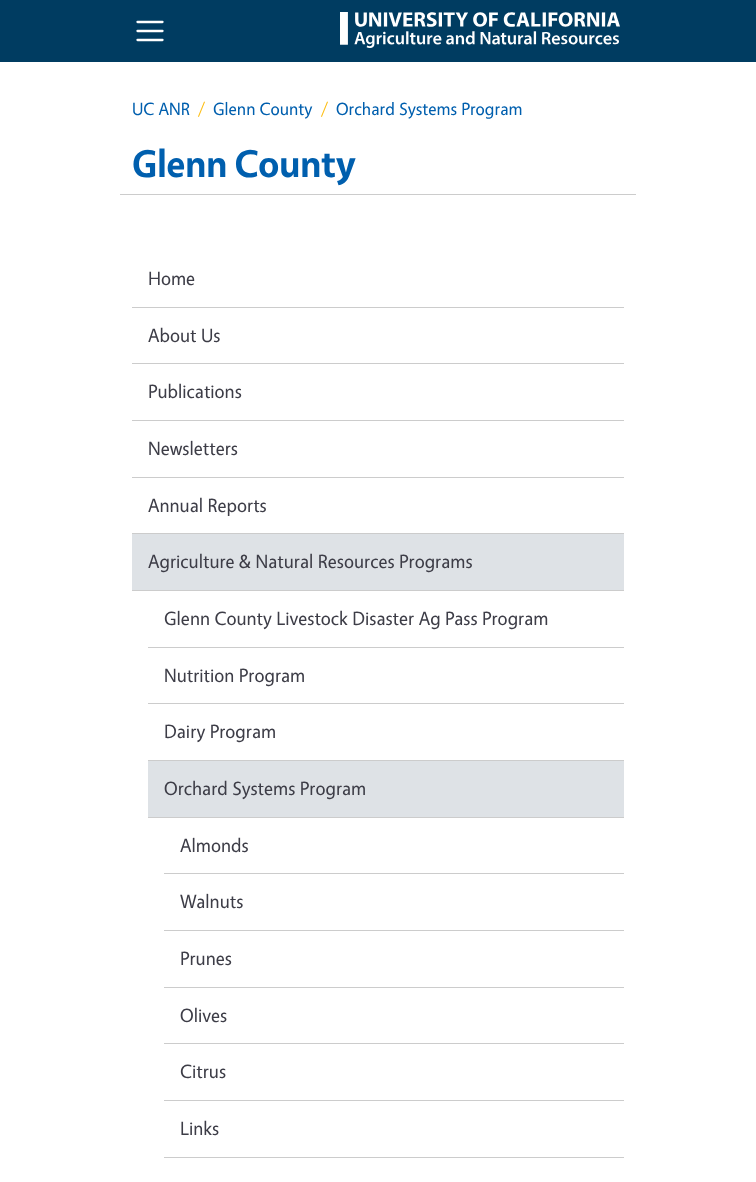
async function draw(canvas) {
  canvas.width = 756
  canvas.height = 1182
  const ctx = canvas.getContext('2d')
  ctx.miterLimit = 4
  ctx.fontKerning = 'normal'
  async function loadImage(src) {
    const img = new Image()
    img.src = src
    await img.decode()
    return img
  }

  ctx.fillStyle = '#fff'
  ctx.fillRect(0, 0, 756, 1182)
  ctx.fillStyle = '#003c61'
  ctx.fillRect(0, 0, 756, 62)
  ctx.beginPath()
  ctx.moveTo(137.5, 22)
  ctx.lineTo(162.5, 22)
  ctx.moveTo(137.5, 31)
  ctx.lineTo(162.5, 31)
  ctx.moveTo(137.5, 40)
  ctx.lineTo(162.5, 40)
  ctx.strokeStyle = '#fff'
  ctx.lineWidth = 2.3
  ctx.lineCap = 'round'
  ctx.stroke()
  ctx.drawImage(await loadImage('image0.png'), 340, 12, 280, 36)
  ctx.font = '17.75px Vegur'
  ctx.fillStyle = '#005fae'
  ctx.fillText('UC ANR', 132, 115)
  ctx.fillStyle = '#fdbd10'
  ctx.fillText('/', 198, 115)
  ctx.fillStyle = '#005fae'
  ctx.fillText('Glenn County', 213, 115)
  ctx.fillStyle = '#fdbd10'
  ctx.fillText('/', 321, 115)
  ctx.fillStyle = '#005fae'
  ctx.fillText('Orchard Systems Program', 336, 115)
  ctx.fillStyle = '#ccc'
  ctx.fillRect(120, 194, 516, 1)
  ctx.font = 'bold 38.75px Vegur'
  ctx.fillStyle = '#005fae'
  ctx.fillText('Glenn County', 132, 177)
  ctx.fillStyle = '#ccc'
  ctx.fillRect(132, 307, 492, 1)
  ctx.font = '19.25px Vegur'
  ctx.fillStyle = '#3d3d47'
  ctx.fillText('Home', 148, 285)
  ctx.fillStyle = '#ccc'
  ctx.fillRect(132, 363, 492, 1)
  ctx.fillStyle = '#3d3d47'
  ctx.fillText('About Us', 148, 342)
  ctx.fillStyle = '#ccc'
  ctx.fillRect(132, 420, 492, 1)
  ctx.fillStyle = '#3d3d47'
  ctx.fillText('Publications', 148, 398)
  ctx.fillStyle = '#ccc'
  ctx.fillRect(132, 477, 492, 1)
  ctx.fillStyle = '#3d3d47'
  ctx.fillText('Newsletters', 148, 455)
  ctx.fillStyle = '#ccc'
  ctx.fillRect(132, 533, 492, 1)
  ctx.fillStyle = '#3d3d47'
  ctx.fillText('Annual Reports', 148, 512)
  ctx.fillStyle = '#dee2e6'
  ctx.fillRect(132, 534, 492, 56)
  ctx.fillStyle = '#ccc'
  ctx.fillRect(132, 590, 492, 1)
  ctx.fillStyle = '#3d3d47'
  ctx.fillText('Agriculture & Natural Resources Programs', 148, 568)
  ctx.fillStyle = '#ccc'
  ctx.fillRect(148, 647, 476, 1)
  ctx.fillStyle = '#3d3d47'
  ctx.fillText('Glenn County Livestock Disaster Ag Pass Program', 164, 625)
  ctx.fillStyle = '#ccc'
  ctx.fillRect(148, 703, 476, 1)
  ctx.fillStyle = '#3d3d47'
  ctx.fillText('Nutrition Program', 164, 682)
  ctx.fillStyle = '#ccc'
  ctx.fillRect(148, 760, 476, 1)
  ctx.fillStyle = '#3d3d47'
  ctx.fillText('Dairy Program', 164, 738)
  ctx.fillStyle = '#dee2e6'
  ctx.fillRect(148, 761, 476, 56)
  ctx.fillStyle = '#ccc'
  ctx.fillRect(148, 817, 476, 1)
  ctx.fillStyle = '#3d3d47'
  ctx.fillText('Orchard Systems Program', 164, 795)
  ctx.fillStyle = '#ccc'
  ctx.fillRect(164, 873, 460, 1)
  ctx.fillStyle = '#3d3d47'
  ctx.fillText('Almonds', 180, 852)
  ctx.fillStyle = '#ccc'
  ctx.fillRect(164, 930, 460, 1)
  ctx.fillStyle = '#3d3d47'
  ctx.fillText('Walnuts', 180, 908)
  ctx.fillStyle = '#ccc'
  ctx.fillRect(164, 987, 460, 1)
  ctx.fillStyle = '#3d3d47'
  ctx.fillText('Prunes', 180, 965)
  ctx.fillStyle = '#ccc'
  ctx.fillRect(164, 1043, 460, 1)
  ctx.fillStyle = '#3d3d47'
  ctx.fillText('Olives', 180, 1022)
  ctx.fillStyle = '#ccc'
  ctx.fillRect(164, 1100, 460, 1)
  ctx.fillStyle = '#3d3d47'
  ctx.fillText('Citrus', 180, 1078)
  ctx.fillStyle = '#ccc'
  ctx.fillRect(164, 1157, 460, 1)
  ctx.fillStyle = '#3d3d47'
  ctx.fillText('Links', 180, 1135)
}

draw(document.querySelector('canvas'))
